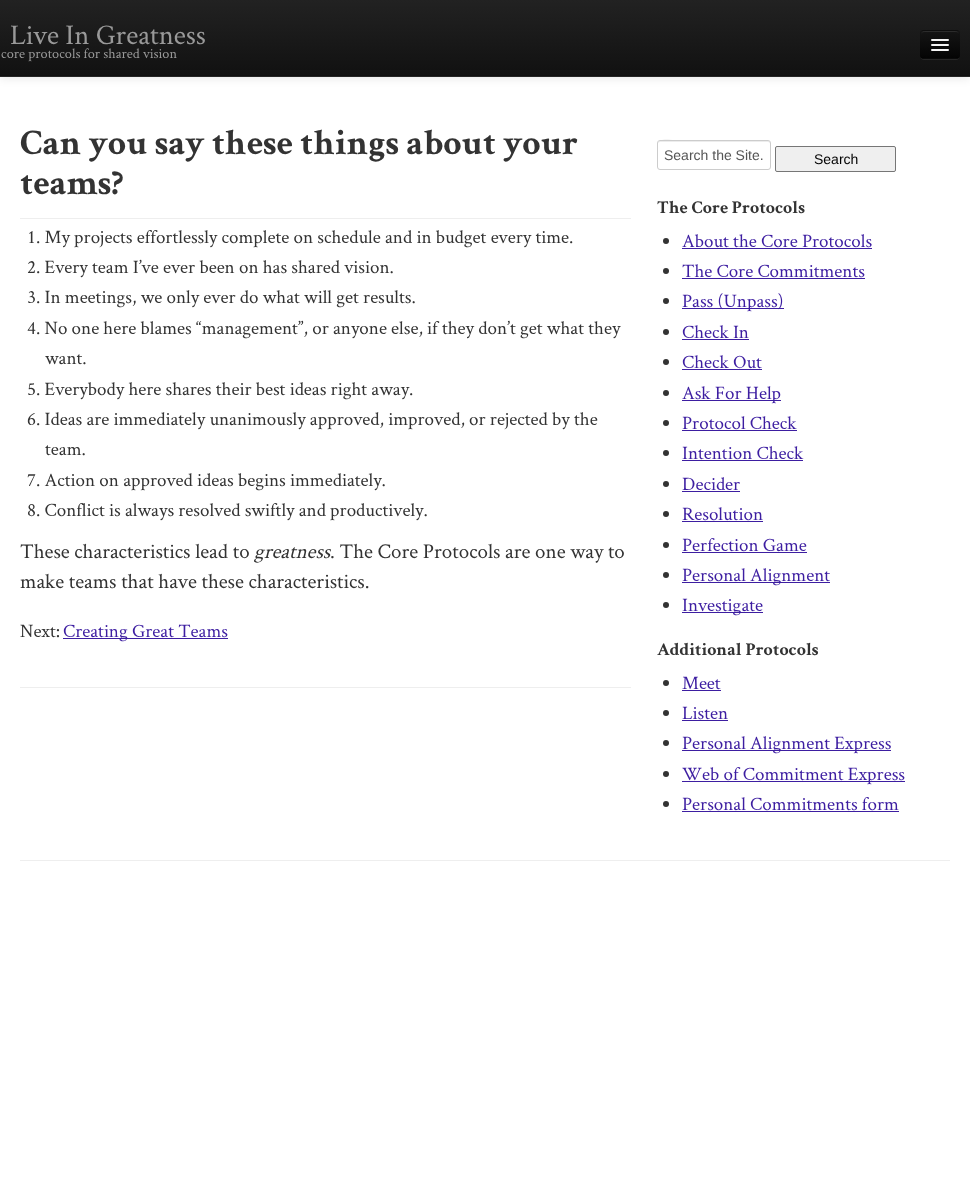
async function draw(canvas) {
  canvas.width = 970
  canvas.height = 1203
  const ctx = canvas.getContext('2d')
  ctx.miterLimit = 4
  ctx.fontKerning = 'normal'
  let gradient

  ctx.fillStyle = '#fff'
  ctx.fillRect(0, 0, 970, 1203)
  ctx.fillStyle = '#0000001a'
  ctx.filter = 'blur(5px)'
  ctx.beginPath()
  ctx.rect(0, 1, 970, 77)
  ctx.fill()
  ctx.filter = 'none'
  gradient = ctx.createLinearGradient(485, 0, 485, 76)
  gradient.addColorStop(0, '#222')
  gradient.addColorStop(1, '#111')
  ctx.fillStyle = gradient
  ctx.fillRect(0, 0, 970, 75)
  ctx.fillStyle = '#0f0f0f'
  ctx.fillRect(0, 75, 970, 1)
  ctx.fillStyle = '#252525'
  ctx.fillRect(0, 76, 970, 1)
  ctx.font = '28.5px Crimson Text'
  ctx.fillStyle = '#999'
  ctx.fillText('Live In Greatness', 10, 44)
  ctx.fillStyle = '#272727'
  ctx.beginPath()
  ctx.moveTo(920, 55)
  ctx.bezierCurveTo(920, 61, 925, 60, 929, 60)
  ctx.lineTo(951, 60)
  ctx.bezierCurveTo(955, 60, 960, 61, 960, 55)
  ctx.bezierCurveTo(960, 57, 958, 59, 956, 59)
  ctx.lineTo(924, 59)
  ctx.bezierCurveTo(922, 59, 920, 57, 920, 55)
  ctx.closePath()
  ctx.fill()
  ctx.fillStyle = '#0e0e0e'
  ctx.beginPath()
  ctx.roundRect(920, 30, 40, 29, 4)
  ctx.fill()
  ctx.save()
  ctx.beginPath()
  ctx.roundRect(920, 30, 40, 29, 4)
  ctx.clip()
  gradient = ctx.createLinearGradient(940, 31, 940, 58)
  gradient.addColorStop(0, '#151515')
  gradient.addColorStop(1, '#040404')
  ctx.fillStyle = gradient
  ctx.fillRect(920, 31, 40, 27)
  ctx.restore()
  ctx.fillStyle = '#2c2c2c'
  ctx.beginPath()
  ctx.moveTo(924, 32)
  ctx.lineTo(956, 32)
  ctx.bezierCurveTo(958, 32, 959, 33, 959, 35)
  ctx.bezierCurveTo(959, 30, 955, 31, 950.5, 31)
  ctx.lineTo(929.5, 31)
  ctx.bezierCurveTo(925, 31, 921, 30, 921, 35)
  ctx.bezierCurveTo(921, 33, 922, 32, 924, 32)
  ctx.closePath()
  ctx.fill()
  ctx.beginPath()
  ctx.moveTo(958.5, 57.5)
  ctx.bezierCurveTo(958, 58, 957, 58.5, 956, 58.5)
  ctx.lineTo(924, 58.5)
  ctx.bezierCurveTo(923, 58.5, 922, 58, 921.5, 57.5)
  ctx.strokeStyle = '#00000040'
  ctx.stroke()
  ctx.fillStyle = '#0b0b0b'
  ctx.beginPath()
  ctx.moveTo(931, 40.5)
  ctx.bezierCurveTo(930, 42.5, 934.5, 42, 934.5, 42)
  ctx.lineTo(945.5, 42)
  ctx.bezierCurveTo(945.5, 42, 950, 42.5, 949, 40.5)
  ctx.bezierCurveTo(948, 41.5, 941.5, 41, 940, 41)
  ctx.bezierCurveTo(938.5, 41, 932, 41.5, 931, 40.5)
  ctx.closePath()
  ctx.fill()
  ctx.fillStyle = '#f5f5f5'
  ctx.beginPath()
  ctx.roundRect(931, 39, 18, 2, 1)
  ctx.fill()
  ctx.fillStyle = '#080808'
  ctx.beginPath()
  ctx.moveTo(931, 45.5)
  ctx.bezierCurveTo(930, 47.5, 934.5, 47, 934.5, 47)
  ctx.lineTo(945.5, 47)
  ctx.bezierCurveTo(945.5, 47, 950, 47.5, 949, 45.5)
  ctx.bezierCurveTo(948, 46.5, 941.5, 46, 940, 46)
  ctx.bezierCurveTo(938.5, 46, 932, 46.5, 931, 45.5)
  ctx.closePath()
  ctx.fill()
  ctx.fillStyle = '#f5f5f5'
  ctx.beginPath()
  ctx.roundRect(931, 44, 18, 2, 1)
  ctx.fill()
  ctx.beginPath()
  ctx.roundRect(931, 49, 18, 2, 1)
  ctx.fill()
  ctx.font = '14.25px Crimson Text'
  ctx.fillStyle = '#999'
  ctx.fillText('core protocols for shared vision', 1, 58)
  ctx.fillStyle = '#eee'
  ctx.fillRect(20, 687, 611, 1)
  ctx.fillRect(20, 218, 611, 1)
  ctx.font = 'bold 36px Crimson Text'
  ctx.fillStyle = '#333'
  ctx.fillText('Can you say these things about your', 20, 154)
  ctx.fillText('teams?', 20, 194)
  ctx.font = '19px Crimson Text'
  ctx.fillText('1. My projects effortlessly complete on schedule and in budget every time.', 27, 243)
  ctx.fillText('2. Every team I’ve ever been on has shared vision.', 27, 273)
  ctx.fillText('3. In meetings, we only ever do what will get results.', 27, 303)
  ctx.fillText('4. No one here blames “management”, or anyone else, if they don’t get what they', 27, 334)
  ctx.fillText('want.', 45, 364)
  ctx.fillText('5. Everybody here shares their best ideas right away.', 27, 395)
  ctx.fillText('6. Ideas are immediately unanimously approved, improved, or rejected by the', 27, 425)
  ctx.fillText('team.', 45, 455)
  ctx.fillText('7. Action on approved ideas begins immediately.', 27, 486)
  ctx.fillText('8. Conflict is always resolved swiftly and productively.', 27, 516)
  ctx.font = '21px Crimson Text'
  ctx.fillText('These characteristics lead to', 20, 558)
  ctx.font = 'italic 21px Crimson Text'
  ctx.fillText('greatness', 254, 558)
  ctx.font = '21px Crimson Text'
  ctx.fillText('. The Core Protocols are one way to', 330, 558)
  ctx.fillText('make teams that have these characteristics.', 20, 588)
  ctx.font = '19px Crimson Text'
  ctx.fillText('Next:', 20, 637)
  ctx.fillStyle = '#3d1ea1'
  ctx.fillRect(63, 638, 165, 1)
  ctx.fillText('Creating Great Teams', 63, 637)
  ctx.fillStyle = '#ececec'
  ctx.beginPath()
  ctx.moveTo(660, 142)
  ctx.lineTo(768, 142)
  ctx.bezierCurveTo(769, 142, 770, 143, 770, 144)
  ctx.bezierCurveTo(770, 143, 770, 141, 768, 141)
  ctx.lineTo(678, 141)
  ctx.bezierCurveTo(678, 141, 658, 136, 658, 144)
  ctx.bezierCurveTo(658, 143, 659, 142, 660, 142)
  ctx.closePath()
  ctx.fill()
  ctx.beginPath()
  ctx.roundRect(657.5, 140.5, 113, 29, 2.5)
  ctx.strokeStyle = '#ccc'
  ctx.stroke()
  ctx.font = '14px Liberation Sans'
  ctx.fillStyle = '#555'
  ctx.fillText('Search the Site.', 664, 160)
  ctx.fillStyle = '#efefef'
  ctx.beginPath()
  ctx.roundRect(775.5, 146.5, 120, 25, 1.5)
  ctx.fill()
  ctx.strokeStyle = '#767676'
  ctx.stroke()
  ctx.fillStyle = '#000'
  ctx.fillText('Search', 814, 164)
  ctx.font = 'bold 18px Crimson Text'
  ctx.fillStyle = '#333'
  ctx.fillText('The Core Protocols', 657, 213)
  ctx.beginPath()
  ctx.arc(666, 241, 3, 0, 2 * Math.PI)
  ctx.fill()
  ctx.font = '19px Crimson Text'
  ctx.fillStyle = '#3d1ea1'
  ctx.fillText('About the Core Protocols', 682, 247)
  ctx.fillRect(682, 248, 190, 1)
  ctx.fillStyle = '#333'
  ctx.beginPath()
  ctx.arc(666, 271, 3, 0, 2 * Math.PI)
  ctx.fill()
  ctx.fillStyle = '#3d1ea1'
  ctx.fillText('The Core Commitments', 682, 277)
  ctx.fillRect(682, 278, 183, 1)
  ctx.fillStyle = '#333'
  ctx.beginPath()
  ctx.arc(666, 301, 3, 0, 2 * Math.PI)
  ctx.fill()
  ctx.fillStyle = '#3d1ea1'
  ctx.fillRect(682, 308, 102, 1)
  ctx.fillText('Pass (Unpass)', 682, 307)
  ctx.fillStyle = '#333'
  ctx.beginPath()
  ctx.arc(666, 332, 3, 0, 2 * Math.PI)
  ctx.fill()
  ctx.fillStyle = '#3d1ea1'
  ctx.fillText('Check In', 682, 338)
  ctx.fillRect(682, 339, 67, 1)
  ctx.fillStyle = '#333'
  ctx.beginPath()
  ctx.arc(666, 362, 3, 0, 2 * Math.PI)
  ctx.fill()
  ctx.fillStyle = '#3d1ea1'
  ctx.fillText('Check Out', 682, 368)
  ctx.fillRect(682, 369, 80, 1)
  ctx.fillStyle = '#333'
  ctx.beginPath()
  ctx.arc(666, 393, 3, 0, 2 * Math.PI)
  ctx.fill()
  ctx.fillStyle = '#3d1ea1'
  ctx.fillRect(682, 400, 99, 1)
  ctx.fillText('Ask For Help', 682, 399)
  ctx.fillStyle = '#333'
  ctx.beginPath()
  ctx.arc(666, 423, 3, 0, 2 * Math.PI)
  ctx.fill()
  ctx.fillStyle = '#3d1ea1'
  ctx.fillText('Protocol Check', 682, 429)
  ctx.fillRect(682, 430, 115, 1)
  ctx.fillStyle = '#333'
  ctx.beginPath()
  ctx.arc(666, 453, 3, 0, 2 * Math.PI)
  ctx.fill()
  ctx.fillStyle = '#3d1ea1'
  ctx.fillText('Intention Check', 682, 459)
  ctx.fillRect(682, 460, 121, 1)
  ctx.fillStyle = '#333'
  ctx.beginPath()
  ctx.arc(666, 484, 3, 0, 2 * Math.PI)
  ctx.fill()
  ctx.fillStyle = '#3d1ea1'
  ctx.fillText('Decider', 682, 490)
  ctx.fillRect(682, 491, 58, 1)
  ctx.fillStyle = '#333'
  ctx.beginPath()
  ctx.arc(666, 514, 3, 0, 2 * Math.PI)
  ctx.fill()
  ctx.fillStyle = '#3d1ea1'
  ctx.fillText('Resolution', 682, 520)
  ctx.fillRect(682, 521, 81, 1)
  ctx.fillStyle = '#333'
  ctx.beginPath()
  ctx.arc(666, 545, 3, 0, 2 * Math.PI)
  ctx.fill()
  ctx.fillStyle = '#3d1ea1'
  ctx.fillText('Perfection Game', 682, 551)
  ctx.fillRect(682, 552, 125, 1)
  ctx.fillStyle = '#333'
  ctx.beginPath()
  ctx.arc(666, 575, 3, 0, 2 * Math.PI)
  ctx.fill()
  ctx.fillStyle = '#3d1ea1'
  ctx.fillRect(682, 582, 148, 1)
  ctx.fillText('Personal Alignment', 682, 581)
  ctx.fillStyle = '#333'
  ctx.beginPath()
  ctx.arc(666, 605, 3, 0, 2 * Math.PI)
  ctx.fill()
  ctx.fillStyle = '#3d1ea1'
  ctx.fillRect(682, 612, 81, 1)
  ctx.fillText('Investigate', 682, 611)
  ctx.font = 'bold 18px Crimson Text'
  ctx.fillStyle = '#333'
  ctx.fillText('Additional Protocols', 657, 655)
  ctx.beginPath()
  ctx.arc(666, 683, 3, 0, 2 * Math.PI)
  ctx.fill()
  ctx.font = '19px Crimson Text'
  ctx.fillStyle = '#3d1ea1'
  ctx.fillText('Meet', 682, 689)
  ctx.fillRect(682, 690, 39, 1)
  ctx.fillStyle = '#333'
  ctx.beginPath()
  ctx.arc(666, 713, 3, 0, 2 * Math.PI)
  ctx.fill()
  ctx.fillStyle = '#3d1ea1'
  ctx.fillText('Listen', 682, 719)
  ctx.fillRect(682, 720, 46, 1)
  ctx.fillStyle = '#333'
  ctx.beginPath()
  ctx.arc(666, 743, 3, 0, 2 * Math.PI)
  ctx.fill()
  ctx.fillStyle = '#3d1ea1'
  ctx.fillRect(682, 750, 209, 1)
  ctx.fillText('Personal Alignment Express', 682, 749)
  ctx.fillStyle = '#333'
  ctx.beginPath()
  ctx.arc(666, 774, 3, 0, 2 * Math.PI)
  ctx.fill()
  ctx.fillStyle = '#3d1ea1'
  ctx.fillRect(682, 781, 223, 1)
  ctx.fillText('Web of Commitment Express', 682, 780)
  ctx.fillStyle = '#333'
  ctx.beginPath()
  ctx.arc(666, 804, 3, 0, 2 * Math.PI)
  ctx.fill()
  ctx.fillStyle = '#3d1ea1'
  ctx.fillText('Personal Commitments form', 682, 810)
  ctx.fillRect(682, 811, 217, 1)
  ctx.fillStyle = '#eee'
  ctx.fillRect(20, 860, 930, 1)
}

draw(document.querySelector('canvas'))
